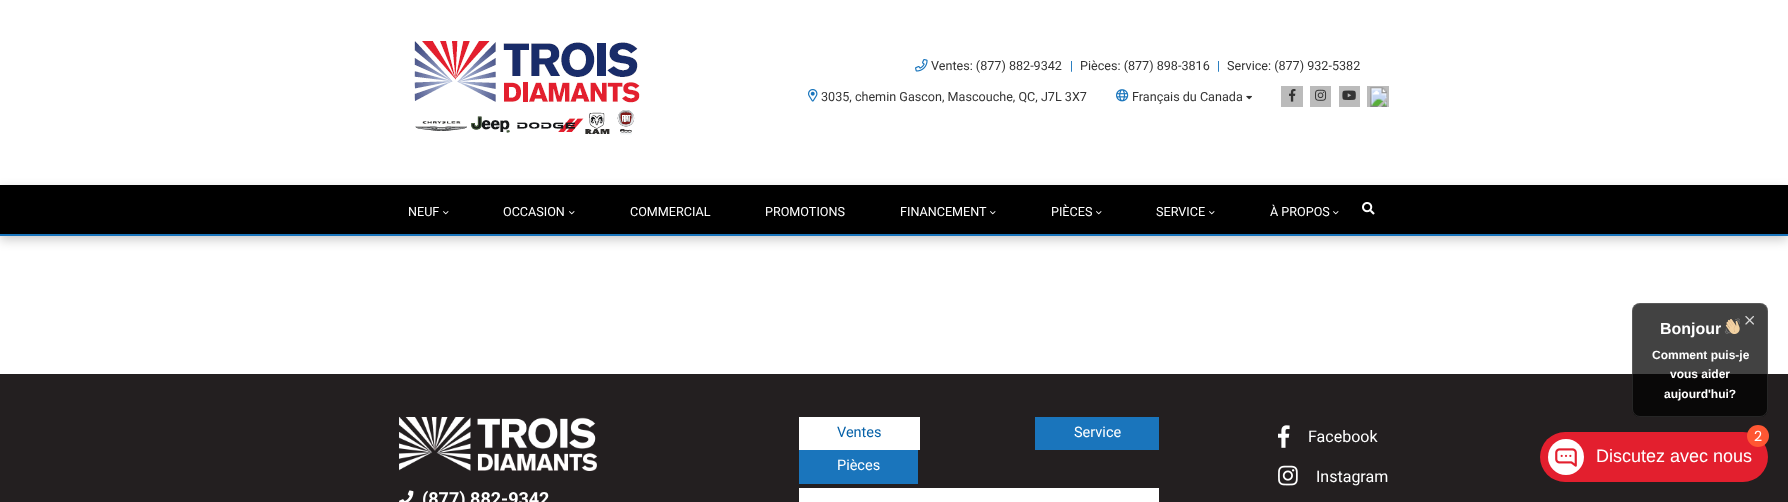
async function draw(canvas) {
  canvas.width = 1788
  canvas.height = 502
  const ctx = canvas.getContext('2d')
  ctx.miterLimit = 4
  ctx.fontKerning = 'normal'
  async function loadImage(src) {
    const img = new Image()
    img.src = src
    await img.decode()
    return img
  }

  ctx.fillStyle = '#fff'
  ctx.fillRect(0, 0, 1788, 502)
  ctx.drawImage(await loadImage('image0.png'), 414, 41, 226, 94)
  ctx.drawImage(await loadImage('image1.png'), 915, 59, 13, 13)
  ctx.font = '12.6px Roboto'
  ctx.fillStyle = '#333'
  ctx.fillText('Ventes: (877) 882-9342', 931, 70)
  ctx.fillStyle = '#1a75bc'
  ctx.fillText('|', 1070, 70)
  ctx.fillStyle = '#333'
  ctx.fillText('Pièces: (877) 898-3816', 1080, 70)
  ctx.fillStyle = '#1a75bc'
  ctx.fillText('|', 1217, 70)
  ctx.fillStyle = '#333'
  ctx.fillText('Service: (877) 932-5382', 1227, 70)
  ctx.drawImage(await loadImage('image2.png'), 808, 89, 10, 13)
  ctx.fillText('3035, chemin Gascon, Mascouche, QC, J7L 3X7', 821, 101)
  ctx.drawImage(await loadImage('image3.png'), 1116, 89, 13, 13)
  ctx.fillText('Français du Canada', 1132, 101)
  ctx.drawImage(await loadImage('image4.png'), 1246, 95, 6, 5)
  ctx.fillStyle = '#bbb'
  ctx.fillRect(1281, 86, 22, 21)
  ctx.drawImage(await loadImage('image5.png'), 1289, 89, 7, 13)
  ctx.fillRect(1310, 86, 21, 21)
  ctx.drawImage(await loadImage('image6.png'), 1315, 89, 12, 12)
  ctx.fillRect(1339, 86, 21, 21)
  ctx.drawImage(await loadImage('image7.png'), 1342, 90, 14, 10)
  ctx.fillRect(1367, 86, 22, 21)
  ctx.drawImage(await loadImage('image8.png'), 1370, 87, 17, 20)
  ctx.fillStyle = '#00000033'
  ctx.filter = 'blur(5.5px)'
  ctx.beginPath()
  ctx.rect(0, 189, 1788, 51)
  ctx.fill()
  ctx.filter = 'none'
  ctx.fillStyle = '#000'
  ctx.fillRect(0, 185, 1788, 49)
  ctx.fillStyle = '#1a75bc'
  ctx.fillRect(0, 234, 1788, 2)
  ctx.fillStyle = '#fff'
  ctx.fillText('NEUF', 408, 216)
  ctx.drawImage(await loadImage('image9.png'), 443, 211, 6, 4)
  ctx.fillText('OCCASION', 503, 216)
  ctx.drawImage(await loadImage('image9.png'), 569, 211, 6, 4)
  ctx.fillText('COMMERCIAL', 630, 216)
  ctx.fillText('PROMOTIONS', 765, 216)
  ctx.fillText('FINANCEMENT', 900, 216)
  ctx.drawImage(await loadImage('image9.png'), 990, 211, 6, 4)
  ctx.fillText('PIÈCES', 1051, 216)
  ctx.drawImage(await loadImage('image9.png'), 1096, 211, 6, 4)
  ctx.fillText('SERVICE', 1156, 216)
  ctx.drawImage(await loadImage('image9.png'), 1209, 211, 6, 4)
  ctx.fillText('À PROPOS', 1270, 216)
  ctx.drawImage(await loadImage('image9.png'), 1333, 211, 6, 4)
  ctx.drawImage(await loadImage('image10.png'), 1362, 202, 13, 13)
  ctx.fillStyle = '#231f20'
  ctx.fillRect(0, 374, 1788, 128)
  ctx.fillStyle = '#000000bd'
  ctx.beginPath()
  ctx.roundRect(1632, 303, 136, 114, 8)
  ctx.fill()
  ctx.beginPath()
  ctx.roundRect(1632.5, 303.5, 135, 113, 7.5)
  ctx.strokeStyle = '#ffffff1f'
  ctx.stroke()
  ctx.drawImage(await loadImage('image11.png'), 1745, 315, 9, 10)
  ctx.font = 'bold 16px Liberation Sans'
  ctx.fillStyle = '#fff'
  ctx.fillText('Bonjour', 1660, 334)
  ctx.drawImage(await loadImage('image12.png'), 1724, 318, 16, 16)
  ctx.font = 'bold 12px Liberation Sans'
  ctx.fillText('Comment puis-je', 1652, 359)
  ctx.fillText('vous aider', 1670, 378)
  ctx.fillText('aujourd\'hui?', 1664, 398)
  ctx.fillRect(799, 417, 121, 33)
  ctx.font = '14.5px Roboto'
  ctx.fillStyle = '#0661a8'
  ctx.fillText('Ventes', 837, 437)
  ctx.fillStyle = '#1a75bc'
  ctx.fillRect(1035, 417, 124, 33)
  ctx.fillStyle = '#fff'
  ctx.fillText('Service', 1074, 437)
  ctx.fillStyle = '#1a75bc'
  ctx.fillRect(799, 450, 119, 34)
  ctx.fillStyle = '#fff'
  ctx.fillText('Pièces', 837, 470)
  ctx.fillRect(799, 488, 360, 14)
  ctx.drawImage(await loadImage('image13.png'), 1278, 425, 12, 23)
  ctx.font = '16px Roboto'
  ctx.fillText('Facebook', 1308, 442)
  ctx.drawImage(await loadImage('image14.png'), 1278, 465, 20, 21)
  ctx.fillText('Instagram', 1316, 482)
  ctx.drawImage(await loadImage('image15.png'), 399, 417, 198, 54)
  ctx.drawImage(await loadImage('image16.png'), 399, 490, 15, 12)
  ctx.font = 'bold 18px Roboto'
  ctx.fillText('(877) 882-9342', 422, 505)
  ctx.fillStyle = '#e31f2e'
  ctx.beginPath()
  ctx.roundRect(1540, 432, 228, 50, 25)
  ctx.fill()
  ctx.fillStyle = '#ff5733'
  ctx.beginPath()
  ctx.arc(1758, 436, 11, 0, 2 * Math.PI)
  ctx.fill()
  ctx.font = '14px Poppins'
  ctx.fillStyle = '#fff'
  ctx.fillText('2', 1754, 441)
  ctx.beginPath()
  ctx.arc(1566, 457, 18, 0, 2 * Math.PI)
  ctx.fill()
  ctx.drawImage(await loadImage('image17.png'), 1555, 448, 22, 19)
  ctx.font = '18px Liberation Sans'
  ctx.fillText('Discutez avec nous', 1596, 462)
}

draw(document.querySelector('canvas'))
